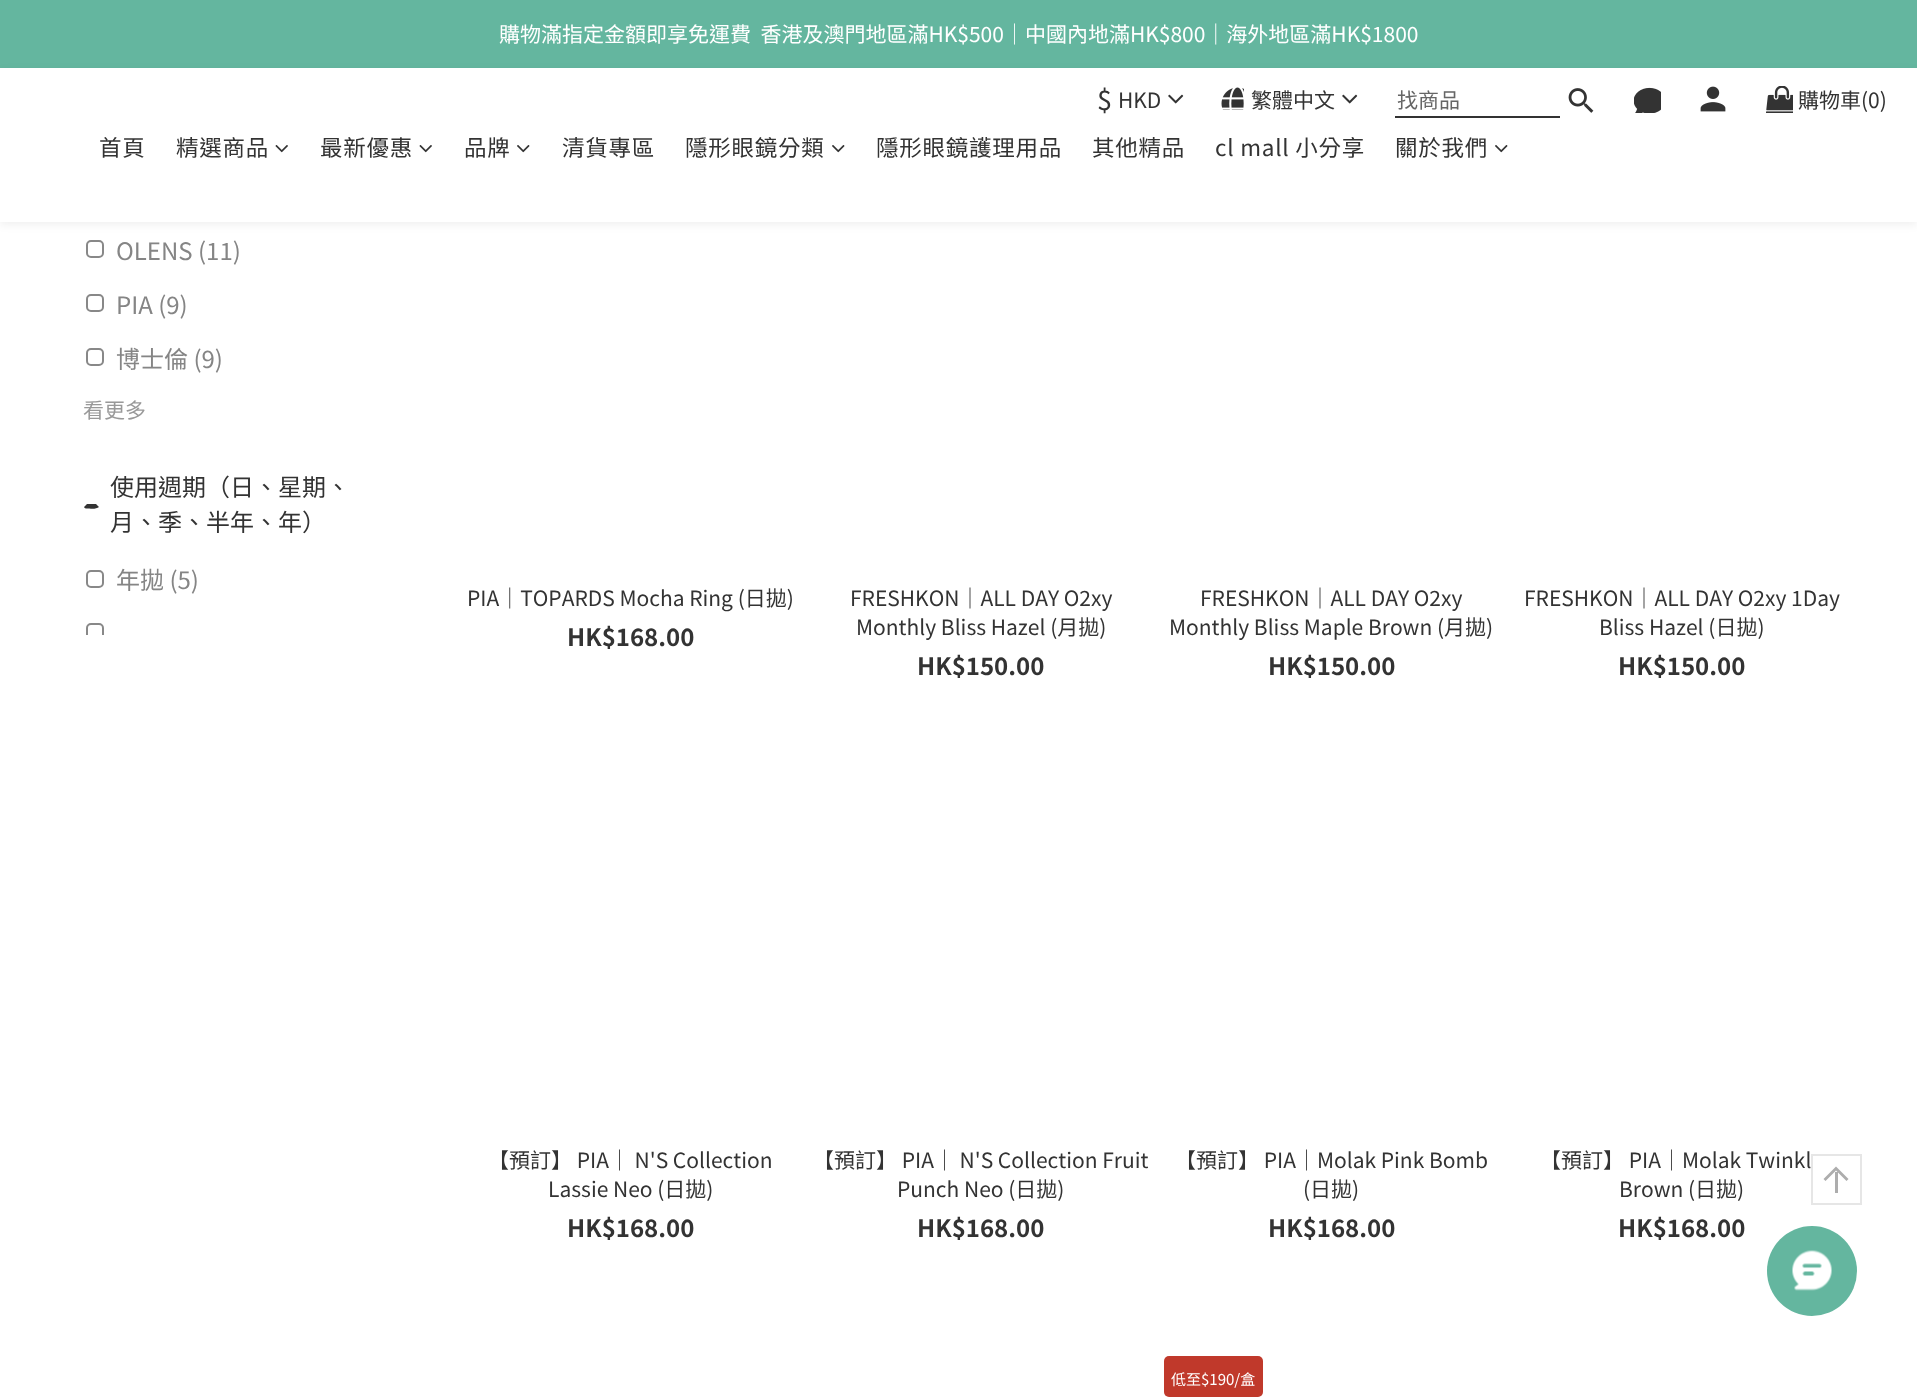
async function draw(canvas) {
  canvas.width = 1917
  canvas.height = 1399
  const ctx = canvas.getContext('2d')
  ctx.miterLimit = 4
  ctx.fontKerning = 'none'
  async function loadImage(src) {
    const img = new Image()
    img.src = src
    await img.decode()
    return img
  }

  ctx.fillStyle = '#fff'
  ctx.fillRect(0, 0, 1917, 1399)
  ctx.fillStyle = '#64b69f'
  ctx.fillRect(0, 0, 1917, 68)
  ctx.font = '21px Noto Sans TC'
  ctx.fillStyle = '#fff'
  ctx.fillText('購物滿指定金額即享免運費  香港及澳門地區滿HK$500｜中國內地滿HK$800｜海外地區滿HK$1800', 499, 42)
  ctx.fillStyle = '#0000000f'
  ctx.filter = 'blur(4.5px)'
  ctx.beginPath()
  ctx.rect(0, 71, 1917, 154)
  ctx.fill()
  ctx.filter = 'none'
  ctx.fillStyle = '#fff'
  ctx.fillRect(0, 68, 1917, 154)
  ctx.letterSpacing = '2px'
  ctx.font = '27px Noto Sans TC'
  ctx.fillStyle = '#333'
  ctx.fillText('$', 1097, 110)
  ctx.letterSpacing = '0px'
  ctx.font = '21px Noto Sans TC'
  ctx.fillText('HKD', 1118, 108)
  ctx.drawImage(await loadImage('image0.png'), 1168, 94, 16, 10)
  ctx.drawImage(await loadImage('image1.png'), 1221, 87, 23, 23)
  ctx.fillText('繁體中文', 1251, 108)
  ctx.drawImage(await loadImage('image0.png'), 1342, 94, 16, 10)
  ctx.fillRect(1395, 116, 165, 2)
  ctx.fillStyle = '#666'
  ctx.fillText('找商品', 1397, 108)
  ctx.drawImage(await loadImage('image2.png'), 1568, 88, 26, 25)
  ctx.drawImage(await loadImage('image3.png'), 1634, 87, 27, 26)
  ctx.drawImage(await loadImage('image4.png'), 1700, 86, 26, 26)
  ctx.drawImage(await loadImage('image5.png'), 1766, 86, 27, 27)
  ctx.fillStyle = '#333'
  ctx.fillText('購物車(0)', 1798, 108)
  ctx.letterSpacing = '0.75px'
  ctx.font = '22.5px Noto Sans TC'
  ctx.fillText('首頁', 99, 156)
  ctx.fillText('精選商品', 176, 156)
  ctx.drawImage(await loadImage('image6.png'), 275, 145, 13, 8)
  ctx.fillText('最新優惠', 320, 156)
  ctx.drawImage(await loadImage('image6.png'), 419, 145, 13, 8)
  ctx.fillText('品牌', 464, 156)
  ctx.drawImage(await loadImage('image7.png'), 517, 145, 13, 8)
  ctx.fillText('清貨專區', 562, 156)
  ctx.fillText('隱形眼鏡分類', 685, 156)
  ctx.drawImage(await loadImage('image7.png'), 832, 145, 13, 8)
  ctx.fillText('隱形眼鏡護理用品', 876, 156)
  ctx.fillText('其他精品', 1092, 156)
  ctx.fillText('cl mall 小分享', 1215, 156)
  ctx.fillText('關於我們', 1395, 156)
  ctx.drawImage(await loadImage('image7.png'), 1495, 145, 13, 8)
  ctx.beginPath()
  ctx.roundRect(87, 241, 16, 16, 4)
  ctx.strokeStyle = '#888'
  ctx.lineWidth = 2
  ctx.stroke()
  ctx.letterSpacing = '0px'
  ctx.font = '24px Noto Sans TC'
  ctx.fillStyle = '#858585'
  ctx.fillText('OLENS (11)', 116, 260)
  ctx.beginPath()
  ctx.roundRect(87, 295, 16, 16, 4)
  ctx.stroke()
  ctx.fillText('PIA (9)', 116, 314)
  ctx.beginPath()
  ctx.roundRect(87, 349, 16, 16, 4)
  ctx.stroke()
  ctx.fillText('博士倫 (9)', 116, 368)
  ctx.font = '21px Noto Sans TC'
  ctx.fillStyle = '#999'
  ctx.fillText('看更多', 83, 418)
  ctx.fillStyle = '#333'
  ctx.beginPath()
  ctx.moveTo(87, 508.5)
  ctx.bezierCurveTo(90, 508.5, 96.5, 509.5, 99, 507)
  ctx.lineTo(96, 504)
  ctx.lineTo(87, 504)
  ctx.lineTo(84, 507)
  ctx.bezierCurveTo(84.5, 508, 85.5, 508.5, 87, 508.5)
  ctx.closePath()
  ctx.fill()
  ctx.font = '24px Noto Sans TC'
  ctx.fillText('使用週期（日、星期、', 110, 496)
  ctx.fillText('月、季、半年、年）', 110, 531)
  ctx.beginPath()
  ctx.roundRect(87, 571, 16, 16, 4)
  ctx.stroke()
  ctx.fillStyle = '#858585'
  ctx.fillText('年拋 (5)', 116, 589)
  ctx.save()
  ctx.beginPath()
  ctx.rect(53, 0, 375, 635)
  ctx.clip()
  ctx.beginPath()
  ctx.roundRect(87, 624, 16, 16, 4)
  ctx.stroke()
  ctx.restore()
  ctx.font = '21px Noto Sans TC'
  ctx.fillStyle = '#333'
  ctx.fillText('PIA｜TOPARDS Mocha Ring (日拋)', 467, 606)
  ctx.font = 'bold 24px Noto Sans TC'
  ctx.fillText('HK$168.00', 567, 646)
  ctx.font = '21px Noto Sans TC'
  ctx.fillText('FRESHKON｜ALL DAY O2xy', 850, 606)
  ctx.fillText('Monthly Bliss Hazel (月拋)', 856, 635)
  ctx.font = 'bold 24px Noto Sans TC'
  ctx.fillText('HK$150.00', 917, 675)
  ctx.font = '21px Noto Sans TC'
  ctx.fillText('FRESHKON｜ALL DAY O2xy', 1200, 606)
  ctx.fillText('Monthly Bliss Maple Brown (月拋)', 1169, 635)
  ctx.font = 'bold 24px Noto Sans TC'
  ctx.fillText('HK$150.00', 1268, 675)
  ctx.font = '21px Noto Sans TC'
  ctx.fillText('FRESHKON｜ALL DAY O2xy 1Day', 1524, 606)
  ctx.fillText('Bliss Hazel (日拋)', 1599, 635)
  ctx.font = 'bold 24px Noto Sans TC'
  ctx.fillText('HK$150.00', 1618, 675)
  ctx.font = '21px Noto Sans TC'
  ctx.fillText('【預訂】 PIA｜ N\'S Collection', 488, 1168)
  ctx.fillText('Lassie Neo (日拋)', 548, 1197)
  ctx.font = 'bold 24px Noto Sans TC'
  ctx.fillText('HK$168.00', 567, 1237)
  ctx.font = '21px Noto Sans TC'
  ctx.fillText('【預訂】 PIA｜ N\'S Collection Fruit', 813, 1168)
  ctx.fillText('Punch Neo (日拋)', 897, 1197)
  ctx.font = 'bold 24px Noto Sans TC'
  ctx.fillText('HK$168.00', 917, 1237)
  ctx.font = '21px Noto Sans TC'
  ctx.fillText('【預訂】 PIA｜Molak Pink Bomb', 1175, 1168)
  ctx.fillText('(日拋)', 1303, 1197)
  ctx.font = 'bold 24px Noto Sans TC'
  ctx.fillText('HK$168.00', 1268, 1237)
  ctx.font = '21px Noto Sans TC'
  ctx.fillText('【預訂】 PIA｜Molak Twinkl', 1540, 1168)
  ctx.fillText('Brown (日拋)', 1619, 1197)
  ctx.font = 'bold 24px Noto Sans TC'
  ctx.fillText('HK$168.00', 1618, 1237)
  ctx.fillStyle = '#c0392b'
  ctx.beginPath()
  ctx.roundRect(1164, 1356, 99, 41, 5)
  ctx.fill()
  ctx.font = '15px Noto Sans TC'
  ctx.fillStyle = '#fff'
  ctx.fillText('低至$190/盒', 1171, 1385)
  ctx.strokeStyle = '#e6e6e6'
  ctx.strokeRect(1812, 1155, 49, 49)
  ctx.fillStyle = '#adadad'
  ctx.beginPath()
  ctx.moveTo(1836, 1166.5)
  ctx.lineTo(1848.5, 1179)
  ctx.lineTo(1846.5, 1181)
  ctx.lineTo(1836, 1170.5)
  ctx.closePath()
  ctx.moveTo(1823.5, 1179)
  ctx.lineTo(1836, 1166.5)
  ctx.lineTo(1836, 1170.5)
  ctx.lineTo(1825.5, 1181)
  ctx.closePath()
  ctx.fill()
  ctx.fillStyle = '#999999cc'
  ctx.fillRect(1835, 1172, 3, 21)
  ctx.fillStyle = '#64b69f'
  ctx.beginPath()
  ctx.arc(1812, 1271, 45, 0, 2 * Math.PI)
  ctx.fill()
  ctx.drawImage(await loadImage('image8.png'), 1792, 1250, 40, 41)
}

draw(document.querySelector('canvas'))
